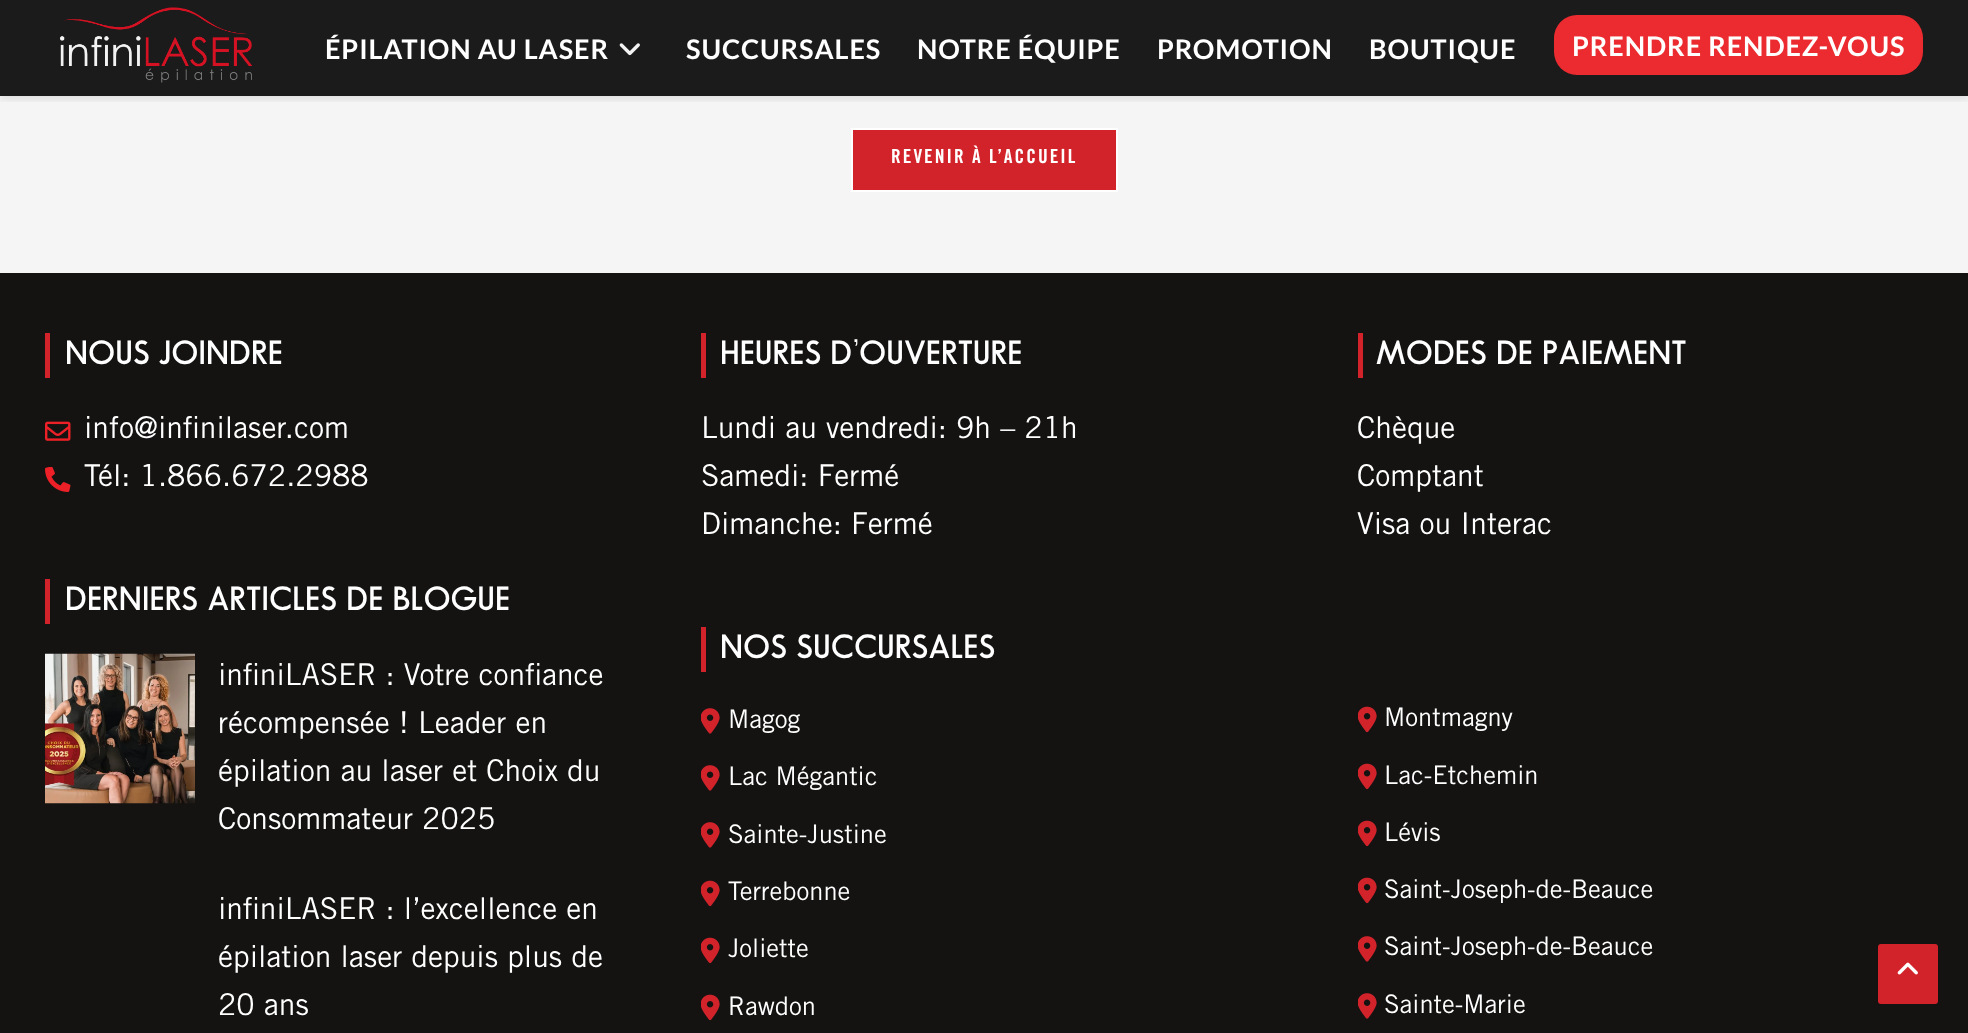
async function draw(canvas) {
  canvas.width = 1968
  canvas.height = 1033
  const ctx = canvas.getContext('2d')
  ctx.miterLimit = 4
  ctx.fontKerning = 'normal'
  async function loadImage(src) {
    const img = new Image()
    img.src = src
    await img.decode()
    return img
  }

  ctx.fillStyle = '#f5f5f5'
  ctx.fillRect(0, 0, 1968, 1033)
  ctx.fillStyle = '#1b1b1b'
  ctx.fillRect(0, 0, 1968, 96)
  ctx.save()
  ctx.beginPath()
  ctx.rect(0, 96, 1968, 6)
  ctx.clip()
  ctx.fillStyle = '#0c0c0c1a'
  ctx.filter = 'blur(4px)'
  ctx.beginPath()
  ctx.rect(0, 3, 1968, 96)
  ctx.fill()
  ctx.filter = 'none'
  ctx.restore()
  ctx.drawImage(await loadImage('image0.png'), 60, 7, 192, 76)
  ctx.letterSpacing = '0.9px'
  ctx.font = 'bold 27px Lato'
  ctx.fillStyle = '#fff'
  ctx.fillText('ÉPILATION AU LASER', 325, 59)
  ctx.drawImage(await loadImage('image1.png'), 619, 43, 21, 13)
  ctx.fillText('SUCCURSALES', 686, 59)
  ctx.fillText('NOTRE ÉQUIPE', 917, 59)
  ctx.fillText('PROMOTION', 1157, 59)
  ctx.fillText('BOUTIQUE', 1369, 59)
  ctx.fillStyle = '#ec2b30'
  ctx.beginPath()
  ctx.roundRect(1554, 15, 369, 60, 23)
  ctx.fill()
  ctx.fillStyle = '#fff'
  ctx.fillText('PRENDRE RENDEZ-VOUS', 1572, 56)
  ctx.fillStyle = '#d2232b'
  ctx.beginPath()
  ctx.rect(852, 129, 265, 62)
  ctx.fill()
  ctx.strokeStyle = '#fff'
  ctx.lineWidth = 2
  ctx.stroke()
  ctx.letterSpacing = '2px'
  ctx.font = 'bold 19.5px Trade Gothic'
  ctx.fillStyle = '#fff'
  ctx.fillText('REVENIR À L’ACCUEIL', 891, 163)
  ctx.fillStyle = '#141312'
  ctx.fillRect(0, 273, 1968, 760)
  ctx.fillStyle = '#d2232b'
  ctx.fillRect(45, 333, 5, 45)
  ctx.letterSpacing = '0px'
  ctx.font = '600 33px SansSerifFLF'
  ctx.fillStyle = '#fff'
  ctx.fillText('NOUS JOINDRE', 65, 364)
  ctx.drawImage(await loadImage('image2.png'), 45, 421, 26, 20)
  ctx.font = '30px Trade Gothic'
  ctx.fillText('info@infinilaser.com', 84, 438)
  ctx.drawImage(await loadImage('image3.png'), 45, 467, 26, 25)
  ctx.fillText('Tél: 1.866.672.2988', 84, 486)
  ctx.fillStyle = '#d2232b'
  ctx.fillRect(45, 579, 5, 45)
  ctx.font = '600 33px SansSerifFLF'
  ctx.fillStyle = '#fff'
  ctx.fillText('DERNIERS ARTICLES DE BLOGUE', 65, 610)
  ctx.drawImage(await loadImage('image4.png'), 45, 653, 150, 151)
  ctx.font = '30px Trade Gothic'
  ctx.fillText('infiniLASER : Votre confiance', 218, 685)
  ctx.fillText('récompensée ! Leader en', 218, 733)
  ctx.fillText('épilation au laser et Choix du', 218, 781)
  ctx.fillText('Consommateur 2025', 218, 829)
  ctx.fillText('infiniLASER : l’excellence en', 218, 919)
  ctx.fillText('épilation laser depuis plus de', 218, 967)
  ctx.fillText('20 ans', 218, 1015)
  ctx.fillStyle = '#d2232b'
  ctx.fillRect(701, 333, 5, 45)
  ctx.font = '600 33px SansSerifFLF'
  ctx.fillStyle = '#fff'
  ctx.fillText('HEURES D’OUVERTURE', 720, 364)
  ctx.font = '30px Trade Gothic'
  ctx.fillText('Lundi au vendredi: 9h – 21h', 701, 438)
  ctx.fillText('Samedi: Fermé', 701, 486)
  ctx.fillText('Dimanche: Fermé', 701, 534)
  ctx.fillStyle = '#d2232b'
  ctx.fillRect(701, 627, 5, 45)
  ctx.font = '600 33px SansSerifFLF'
  ctx.fillStyle = '#fff'
  ctx.fillText('NOS SUCCURSALES', 720, 658)
  ctx.drawImage(await loadImage('image5.png'), 701, 708, 19, 26)
  ctx.font = '25.5px Trade Gothic'
  ctx.fillText('Magog', 728, 728)
  ctx.drawImage(await loadImage('image5.png'), 701, 765, 19, 26)
  ctx.fillText('Lac Mégantic', 728, 785)
  ctx.drawImage(await loadImage('image5.png'), 701, 822, 19, 26)
  ctx.fillText('Sainte-Justine', 728, 843)
  ctx.drawImage(await loadImage('image6.png'), 701, 880, 19, 27)
  ctx.fillText('Terrebonne', 728, 900)
  ctx.drawImage(await loadImage('image6.png'), 701, 937, 19, 27)
  ctx.fillText('Joliette', 728, 957)
  ctx.drawImage(await loadImage('image6.png'), 701, 994, 19, 27)
  ctx.fillText('Rawdon', 728, 1015)
  ctx.fillStyle = '#d2232b'
  ctx.fillRect(1358, 333, 5, 45)
  ctx.font = '600 33px SansSerifFLF'
  ctx.fillStyle = '#fff'
  ctx.fillText('MODES DE PAIEMENT', 1376, 364)
  ctx.font = '30px Trade Gothic'
  ctx.fillText('Chèque', 1357, 438)
  ctx.fillText('Comptant', 1357, 486)
  ctx.fillText('Visa ou Interac', 1357, 534)
  ctx.drawImage(await loadImage('image6.png'), 1358, 706, 19, 27)
  ctx.font = '25.5px Trade Gothic'
  ctx.fillText('Montmagny', 1384, 726)
  ctx.drawImage(await loadImage('image6.png'), 1358, 763, 19, 27)
  ctx.fillText('Lac-Etchemin', 1384, 784)
  ctx.drawImage(await loadImage('image6.png'), 1358, 820, 19, 27)
  ctx.fillText('Lévis', 1384, 841)
  ctx.drawImage(await loadImage('image6.png'), 1358, 877, 19, 27)
  ctx.fillText('Saint-Joseph-de-Beauce', 1384, 898)
  ctx.drawImage(await loadImage('image5.png'), 1358, 936, 19, 26)
  ctx.fillText('Saint-Joseph-de-Beauce', 1384, 955)
  ctx.drawImage(await loadImage('image5.png'), 1358, 993, 19, 26)
  ctx.fillText('Sainte-Marie', 1384, 1013)
  ctx.fillStyle = '#d2232b'
  ctx.beginPath()
  ctx.roundRect(1878, 944, 60, 60, 3)
  ctx.fill()
  ctx.drawImage(await loadImage('image7.png'), 1897, 962, 21, 13)
}

draw(document.querySelector('canvas'))
